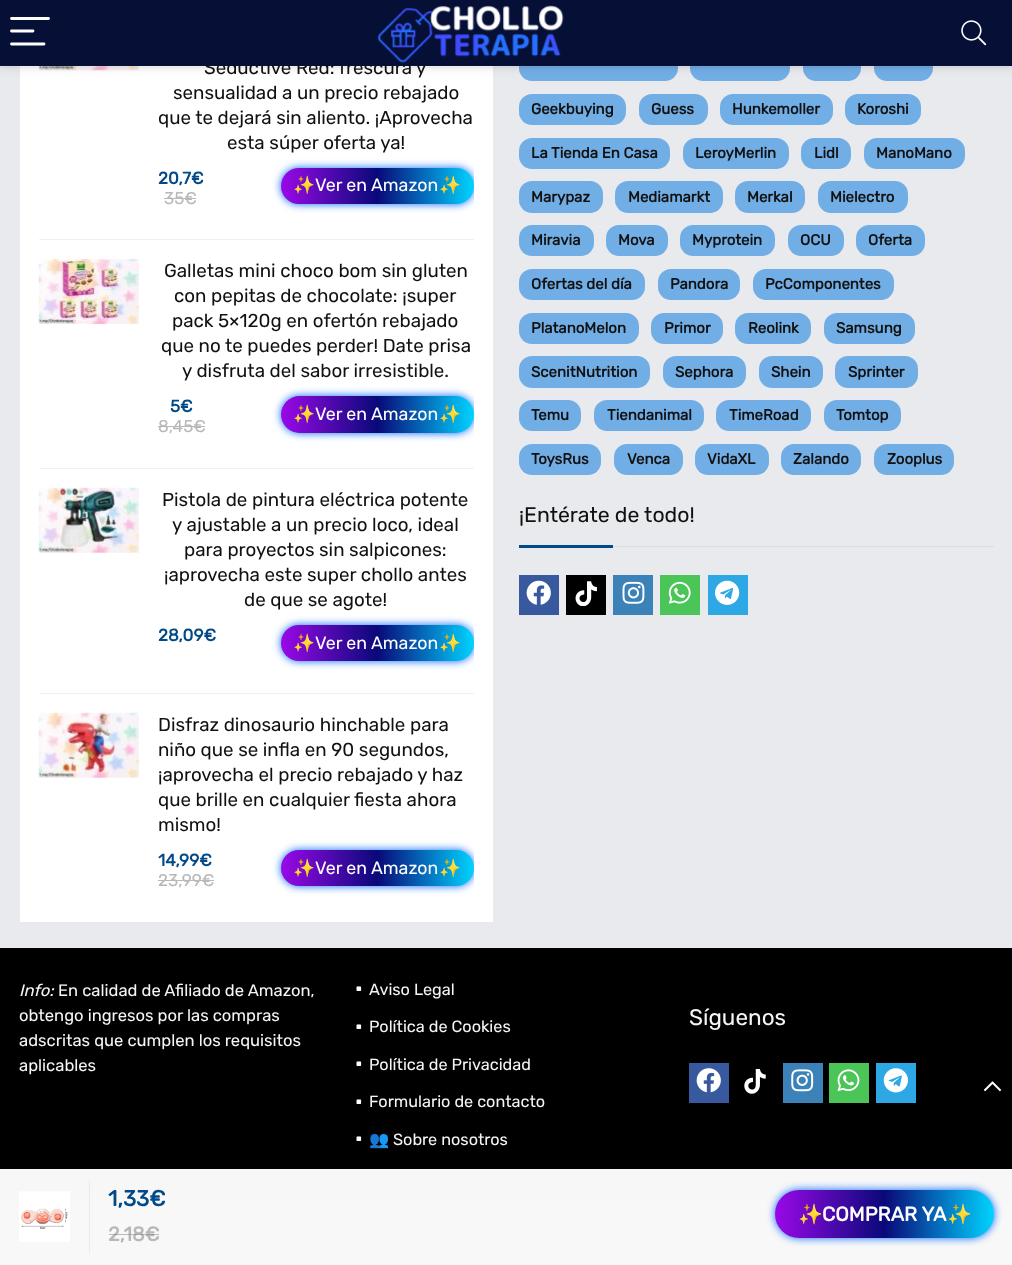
async function draw(canvas) {
  canvas.width = 1012
  canvas.height = 1265
  const ctx = canvas.getContext('2d')
  ctx.miterLimit = 4
  ctx.fontKerning = 'normal'
  async function loadImage(src) {
    const img = new Image()
    img.src = src
    await img.decode()
    return img
  }
  let gradient

  ctx.fillStyle = '#e9eaed'
  ctx.fillRect(0, 0, 1012, 1265)
  ctx.fillStyle = '#fff'
  ctx.fillRect(20, 66, 473, 856)
  ctx.drawImage(await loadImage('image2.png'), 38, 66, 101, 5)
  ctx.font = '300 18.75px Rubik'
  ctx.fillStyle = '#111'
  ctx.fillText('Seductive Red: frescura y', 204, 74)
  ctx.fillStyle = '#72aee6'
  ctx.beginPath()
  ctx.roundRect(519, 50, 159, 31, 13)
  ctx.fill()
  ctx.beginPath()
  ctx.roundRect(690, 50, 100, 31, 13)
  ctx.fill()
  ctx.beginPath()
  ctx.roundRect(803, 50, 58, 31, 13)
  ctx.fill()
  ctx.beginPath()
  ctx.roundRect(874, 50, 59, 31, 13)
  ctx.fill()
  ctx.strokeStyle = '#00000008'
  ctx.strokeRect(-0.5, -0.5, 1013, 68)
  ctx.fillStyle = '#0000001a'
  ctx.filter = 'blur(5px)'
  ctx.beginPath()
  ctx.rect(0, 1, 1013, 67)
  ctx.fill()
  ctx.filter = 'none'
  ctx.fillStyle = '#061037'
  ctx.fillRect(0, 0, 1012, 66)
  ctx.beginPath()
  ctx.moveTo(11.5, 18.5)
  ctx.lineTo(48.5, 18.5)
  ctx.moveTo(11.5, 31)
  ctx.lineTo(33, 31)
  ctx.moveTo(11.5, 44)
  ctx.lineTo(44, 44)
  ctx.strokeStyle = '#fff'
  ctx.lineWidth = 2.8
  ctx.lineCap = 'round'
  ctx.stroke()
  ctx.drawImage(await loadImage('image0.png'), 377, 5, 187, 58)
  ctx.drawImage(await loadImage('image1.png'), 961, 20, 26, 26)
  ctx.fillStyle = '#f0f0f0'
  ctx.fillRect(39, 239, 435, 1)
  ctx.fillStyle = '#111'
  ctx.fillText('sensualidad a un precio rebajado', 173, 99)
  ctx.fillText('que te dejará sin aliento. ¡Aprovecha', 158, 124)
  ctx.fillText('esta súper oferta ya!', 227, 149)
  ctx.font = 'bold 17px Rubik'
  ctx.fillStyle = '#024a87'
  ctx.fillText('20,7€', 158, 184)
  ctx.font = '300 17px Rubik'
  ctx.fillStyle = '#b8b8b8'
  ctx.fillText('35€', 164, 204)
  ctx.fillRect(164, 198, 32, 1)
  ctx.save()
  ctx.beginPath()
  ctx.rect(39, 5, 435, 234)
  ctx.clip()
  ctx.fillStyle = '#0067ff'
  ctx.filter = 'blur(4px)'
  ctx.beginPath()
  ctx.roundRect(281, 168, 193, 36, 18)
  ctx.fill()
  ctx.filter = 'none'
  ctx.restore()
  gradient = ctx.createLinearGradient(281, 186, 474, 186)
  gradient.addColorStop(0, '#9a08e8')
  gradient.addColorStop(0.5, '#090979')
  gradient.addColorStop(1, '#00d4ff')
  ctx.fillStyle = gradient
  ctx.beginPath()
  ctx.roundRect(281, 168, 193, 36, 18)
  ctx.fill()
  ctx.font = '17.75px Noto Color Emoji'
  ctx.fillStyle = '#fff'
  ctx.fillText('✨', 293, 191)
  ctx.font = '300 17.75px Rubik'
  ctx.fillText('Ver en Amazon', 315, 191)
  ctx.font = '17.75px Noto Color Emoji'
  ctx.fillText('✨', 439, 191)
  ctx.fillStyle = '#f0f0f0'
  ctx.fillRect(39, 468, 435, 1)
  ctx.drawImage(await loadImage('image3.png'), 38, 259, 101, 65)
  ctx.font = '300 18.75px Rubik'
  ctx.fillStyle = '#111'
  ctx.fillText('Galletas mini choco bom sin gluten', 164, 277)
  ctx.fillText('con pepitas de chocolate: ¡super', 174, 302)
  ctx.fillText('pack 5×120g en ofertón rebajado', 172, 327)
  ctx.fillText('que no te puedes perder! Date prisa', 161, 352)
  ctx.fillText('y disfruta del sabor irresistible.', 182, 377)
  ctx.font = 'bold 17px Rubik'
  ctx.fillStyle = '#024a87'
  ctx.fillText('5€', 170, 412)
  ctx.font = '300 17px Rubik'
  ctx.fillStyle = '#b8b8b8'
  ctx.fillText('8,45€', 158, 432)
  ctx.fillRect(158, 426, 47, 1)
  ctx.save()
  ctx.beginPath()
  ctx.rect(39, 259, 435, 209)
  ctx.clip()
  ctx.fillStyle = '#0067ff'
  ctx.filter = 'blur(4px)'
  ctx.beginPath()
  ctx.roundRect(281, 396, 193, 37, 18.5)
  ctx.fill()
  ctx.filter = 'none'
  ctx.restore()
  gradient = ctx.createLinearGradient(281, 414, 474, 414)
  gradient.addColorStop(0, '#9a08e8')
  gradient.addColorStop(0.5, '#090979')
  gradient.addColorStop(1, '#00d4ff')
  ctx.fillStyle = gradient
  ctx.beginPath()
  ctx.roundRect(281, 396, 193, 37, 18.5)
  ctx.fill()
  ctx.font = '17.75px Noto Color Emoji'
  ctx.fillStyle = '#fff'
  ctx.fillText('✨', 293, 420)
  ctx.font = '300 17.75px Rubik'
  ctx.fillText('Ver en Amazon', 315, 420)
  ctx.font = '17.75px Noto Color Emoji'
  ctx.fillText('✨', 439, 420)
  ctx.fillStyle = '#f0f0f0'
  ctx.fillRect(39, 693, 435, 1)
  ctx.drawImage(await loadImage('image4.png'), 38, 487, 101, 66)
  ctx.font = '300 18.75px Rubik'
  ctx.fillStyle = '#111'
  ctx.fillText('Pistola de pintura eléctrica potente', 162, 506)
  ctx.fillText('y ajustable a un precio loco, ideal', 172, 531)
  ctx.fillText('para proyectos sin salpicones:', 184, 556)
  ctx.fillText('¡aprovecha este super chollo antes', 164, 581)
  ctx.fillText('de que se agote!', 244, 606)
  ctx.font = 'bold 17px Rubik'
  ctx.fillStyle = '#024a87'
  ctx.fillText('28,09€', 158, 641)
  ctx.save()
  ctx.beginPath()
  ctx.rect(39, 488, 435, 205)
  ctx.clip()
  ctx.fillStyle = '#0067ff'
  ctx.filter = 'blur(4px)'
  ctx.beginPath()
  ctx.roundRect(281, 625, 193, 36, 18)
  ctx.fill()
  ctx.filter = 'none'
  ctx.restore()
  gradient = ctx.createLinearGradient(281, 643, 474, 643)
  gradient.addColorStop(0, '#9a08e8')
  gradient.addColorStop(0.5, '#090979')
  gradient.addColorStop(1, '#00d4ff')
  ctx.fillStyle = gradient
  ctx.beginPath()
  ctx.roundRect(281, 625, 193, 36, 18)
  ctx.fill()
  ctx.font = '17.75px Noto Color Emoji'
  ctx.fillStyle = '#fff'
  ctx.fillText('✨', 293, 649)
  ctx.font = '300 17.75px Rubik'
  ctx.fillText('Ver en Amazon', 315, 649)
  ctx.font = '17.75px Noto Color Emoji'
  ctx.fillText('✨', 439, 649)
  ctx.drawImage(await loadImage('image5.png'), 38, 712, 101, 66)
  ctx.font = '300 18.75px Rubik'
  ctx.fillStyle = '#111'
  ctx.fillText('Disfraz dinosaurio hinchable para', 158, 731)
  ctx.fillText('niño que se infla en 90 segundos,', 158, 756)
  ctx.fillText('¡aprovecha el precio rebajado y haz', 158, 781)
  ctx.fillText('que brille en cualquier fiesta ahora', 158, 806)
  ctx.fillText('mismo!', 158, 831)
  ctx.font = 'bold 17px Rubik'
  ctx.fillStyle = '#024a87'
  ctx.fillText('14,99€', 158, 866)
  ctx.font = '300 17px Rubik'
  ctx.fillStyle = '#b8b8b8'
  ctx.fillText('23,99€', 158, 886)
  ctx.fillRect(158, 880, 56, 1)
  ctx.save()
  ctx.beginPath()
  ctx.rect(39, 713, 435, 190)
  ctx.clip()
  ctx.fillStyle = '#0067ff'
  ctx.filter = 'blur(4px)'
  ctx.beginPath()
  ctx.roundRect(281, 850, 193, 36, 18)
  ctx.fill()
  ctx.filter = 'none'
  ctx.restore()
  gradient = ctx.createLinearGradient(281, 868, 474, 868)
  gradient.addColorStop(0, '#9a08e8')
  gradient.addColorStop(0.5, '#090979')
  gradient.addColorStop(1, '#00d4ff')
  ctx.fillStyle = gradient
  ctx.beginPath()
  ctx.roundRect(281, 850, 193, 36, 18)
  ctx.fill()
  ctx.font = '17.75px Noto Color Emoji'
  ctx.fillStyle = '#fff'
  ctx.fillText('✨', 293, 874)
  ctx.font = '300 17.75px Rubik'
  ctx.fillText('Ver en Amazon', 315, 874)
  ctx.font = '17.75px Noto Color Emoji'
  ctx.fillText('✨', 439, 874)
  ctx.fillStyle = '#72aee6'
  ctx.beginPath()
  ctx.roundRect(519, 94, 107, 31, 13)
  ctx.fill()
  ctx.font = 'bold 15px Rubik'
  ctx.fillStyle = '#111'
  ctx.fillText('Geekbuying', 531, 114)
  ctx.fillStyle = '#72aee6'
  ctx.beginPath()
  ctx.roundRect(639, 94, 69, 31, 13)
  ctx.fill()
  ctx.fillStyle = '#111'
  ctx.fillText('Guess', 651, 114)
  ctx.fillStyle = '#72aee6'
  ctx.beginPath()
  ctx.roundRect(720, 94, 113, 31, 13)
  ctx.fill()
  ctx.fillStyle = '#111'
  ctx.fillText('Hunkemoller', 732, 114)
  ctx.fillStyle = '#72aee6'
  ctx.beginPath()
  ctx.roundRect(845, 94, 76, 31, 13)
  ctx.fill()
  ctx.fillStyle = '#111'
  ctx.fillText('Koroshi', 857, 114)
  ctx.fillStyle = '#72aee6'
  ctx.beginPath()
  ctx.roundRect(519, 138, 151, 31, 13)
  ctx.fill()
  ctx.fillStyle = '#111'
  ctx.fillText('La Tienda En Casa', 531, 158)
  ctx.fillStyle = '#72aee6'
  ctx.beginPath()
  ctx.roundRect(683, 138, 106, 31, 13)
  ctx.fill()
  ctx.fillStyle = '#111'
  ctx.fillText('LeroyMerlin', 695, 158)
  ctx.fillStyle = '#72aee6'
  ctx.beginPath()
  ctx.roundRect(801, 138, 50, 31, 13)
  ctx.fill()
  ctx.fillStyle = '#111'
  ctx.fillText('Lidl', 814, 158)
  ctx.fillStyle = '#72aee6'
  ctx.beginPath()
  ctx.roundRect(864, 138, 101, 31, 13)
  ctx.fill()
  ctx.fillStyle = '#111'
  ctx.fillText('ManoMano', 876, 158)
  ctx.fillStyle = '#72aee6'
  ctx.beginPath()
  ctx.roundRect(519, 181, 84, 32, 13)
  ctx.fill()
  ctx.fillStyle = '#111'
  ctx.fillText('Marypaz', 531, 202)
  ctx.fillStyle = '#72aee6'
  ctx.beginPath()
  ctx.roundRect(615, 181, 108, 32, 13)
  ctx.fill()
  ctx.fillStyle = '#111'
  ctx.fillText('Mediamarkt', 628, 202)
  ctx.fillStyle = '#72aee6'
  ctx.beginPath()
  ctx.roundRect(735, 181, 70, 32, 13)
  ctx.fill()
  ctx.fillStyle = '#111'
  ctx.fillText('Merkal', 747, 202)
  ctx.fillStyle = '#72aee6'
  ctx.beginPath()
  ctx.roundRect(818, 181, 90, 32, 13)
  ctx.fill()
  ctx.fillStyle = '#111'
  ctx.fillText('Mielectro', 830, 202)
  ctx.fillStyle = '#72aee6'
  ctx.beginPath()
  ctx.roundRect(519, 225, 75, 31, 13)
  ctx.fill()
  ctx.fillStyle = '#111'
  ctx.fillText('Miravia', 531, 245)
  ctx.fillStyle = '#72aee6'
  ctx.beginPath()
  ctx.roundRect(606, 225, 62, 31, 13)
  ctx.fill()
  ctx.fillStyle = '#111'
  ctx.fillText('Mova', 618, 245)
  ctx.fillStyle = '#72aee6'
  ctx.beginPath()
  ctx.roundRect(680, 225, 95, 31, 13)
  ctx.fill()
  ctx.fillStyle = '#111'
  ctx.fillText('Myprotein', 692, 245)
  ctx.fillStyle = '#72aee6'
  ctx.beginPath()
  ctx.roundRect(788, 225, 56, 31, 13)
  ctx.fill()
  ctx.fillStyle = '#111'
  ctx.fillText('OCU', 800, 245)
  ctx.fillStyle = '#72aee6'
  ctx.beginPath()
  ctx.roundRect(856, 225, 69, 31, 13)
  ctx.fill()
  ctx.fillStyle = '#111'
  ctx.fillText('Oferta', 868, 245)
  ctx.fillStyle = '#72aee6'
  ctx.beginPath()
  ctx.roundRect(519, 269, 126, 31, 13)
  ctx.fill()
  ctx.fillStyle = '#111'
  ctx.fillText('Ofertas del día', 531, 289)
  ctx.fillStyle = '#72aee6'
  ctx.beginPath()
  ctx.roundRect(658, 269, 82, 31, 13)
  ctx.fill()
  ctx.fillStyle = '#111'
  ctx.fillText('Pandora', 670, 289)
  ctx.fillStyle = '#72aee6'
  ctx.beginPath()
  ctx.roundRect(753, 269, 141, 31, 13)
  ctx.fill()
  ctx.fillStyle = '#111'
  ctx.fillText('PcComponentes', 765, 289)
  ctx.fillStyle = '#72aee6'
  ctx.beginPath()
  ctx.roundRect(519, 313, 120, 31, 13)
  ctx.fill()
  ctx.fillStyle = '#111'
  ctx.fillText('PlatanoMelon', 531, 333)
  ctx.fillStyle = '#72aee6'
  ctx.beginPath()
  ctx.roundRect(651, 313, 72, 31, 13)
  ctx.fill()
  ctx.fillStyle = '#111'
  ctx.fillText('Primor', 664, 333)
  ctx.fillStyle = '#72aee6'
  ctx.beginPath()
  ctx.roundRect(735, 313, 76, 31, 13)
  ctx.fill()
  ctx.fillStyle = '#111'
  ctx.fillText('Reolink', 748, 333)
  ctx.fillStyle = '#72aee6'
  ctx.beginPath()
  ctx.roundRect(824, 313, 91, 31, 13)
  ctx.fill()
  ctx.fillStyle = '#111'
  ctx.fillText('Samsung', 836, 333)
  ctx.fillStyle = '#72aee6'
  ctx.beginPath()
  ctx.roundRect(519, 356, 131, 32, 13)
  ctx.fill()
  ctx.fillStyle = '#111'
  ctx.fillText('ScenitNutrition', 531, 377)
  ctx.fillStyle = '#72aee6'
  ctx.beginPath()
  ctx.roundRect(663, 356, 83, 32, 13)
  ctx.fill()
  ctx.fillStyle = '#111'
  ctx.fillText('Sephora', 675, 377)
  ctx.fillStyle = '#72aee6'
  ctx.beginPath()
  ctx.roundRect(759, 356, 64, 32, 13)
  ctx.fill()
  ctx.fillStyle = '#111'
  ctx.fillText('Shein', 771, 377)
  ctx.fillStyle = '#72aee6'
  ctx.beginPath()
  ctx.roundRect(835, 356, 83, 32, 13)
  ctx.fill()
  ctx.fillStyle = '#111'
  ctx.fillText('Sprinter', 848, 377)
  ctx.fillStyle = '#72aee6'
  ctx.beginPath()
  ctx.roundRect(519, 400, 62, 31, 13)
  ctx.fill()
  ctx.fillStyle = '#111'
  ctx.fillText('Temu', 531, 420)
  ctx.fillStyle = '#72aee6'
  ctx.beginPath()
  ctx.roundRect(594, 400, 110, 31, 13)
  ctx.fill()
  ctx.fillStyle = '#111'
  ctx.fillText('Tiendanimal', 607, 420)
  ctx.fillStyle = '#72aee6'
  ctx.beginPath()
  ctx.roundRect(716, 400, 95, 31, 13)
  ctx.fill()
  ctx.fillStyle = '#111'
  ctx.fillText('TimeRoad', 729, 420)
  ctx.fillStyle = '#72aee6'
  ctx.beginPath()
  ctx.roundRect(824, 400, 77, 31, 13)
  ctx.fill()
  ctx.fillStyle = '#111'
  ctx.fillText('Tomtop', 836, 420)
  ctx.fillStyle = '#72aee6'
  ctx.beginPath()
  ctx.roundRect(519, 444, 82, 31, 13)
  ctx.fill()
  ctx.fillStyle = '#111'
  ctx.fillText('ToysRus', 531, 464)
  ctx.fillStyle = '#72aee6'
  ctx.beginPath()
  ctx.roundRect(614, 444, 69, 31, 13)
  ctx.fill()
  ctx.fillStyle = '#111'
  ctx.fillText('Venca', 627, 464)
  ctx.fillStyle = '#72aee6'
  ctx.beginPath()
  ctx.roundRect(695, 444, 74, 31, 13)
  ctx.fill()
  ctx.fillStyle = '#111'
  ctx.fillText('VidaXL', 707, 464)
  ctx.fillStyle = '#72aee6'
  ctx.beginPath()
  ctx.roundRect(781, 444, 80, 31, 13)
  ctx.fill()
  ctx.fillStyle = '#111'
  ctx.fillText('Zalando', 793, 464)
  ctx.fillStyle = '#72aee6'
  ctx.beginPath()
  ctx.roundRect(874, 444, 80, 31, 13)
  ctx.fill()
  ctx.fillStyle = '#111'
  ctx.fillText('Zooplus', 887, 464)
  ctx.fillStyle = '#ddd'
  ctx.fillRect(613, 546, 381, 1)
  ctx.font = '300 21.25px Rubik'
  ctx.fillStyle = '#111'
  ctx.fillText('¡Entérate de todo!', 519, 522)
  ctx.fillStyle = '#024a87'
  ctx.fillRect(519, 545, 94, 3)
  ctx.fillStyle = '#39599f'
  ctx.fillRect(519, 575, 40, 40)
  ctx.drawImage(await loadImage('image6.png'), 526, 580, 25, 25)
  ctx.fillStyle = '#000'
  ctx.fillRect(566, 575, 40, 40)
  ctx.drawImage(await loadImage('image7.png'), 575, 581, 22, 25)
  ctx.fillStyle = '#3a82b8'
  ctx.fillRect(613, 575, 40, 40)
  ctx.drawImage(await loadImage('image8.png'), 622, 581, 23, 23)
  ctx.fillStyle = '#4bc557'
  ctx.fillRect(660, 575, 40, 40)
  ctx.drawImage(await loadImage('image9.png'), 668, 581, 23, 23)
  ctx.fillStyle = '#2da8e4'
  ctx.fillRect(708, 575, 40, 40)
  ctx.drawImage(await loadImage('image10.png'), 715, 580, 25, 25)
  ctx.fillStyle = '#f7f7f7'
  ctx.fillRect(0, 1169, 1012, 29)
  ctx.fillStyle = '#f8f8f8'
  ctx.fillRect(0, 1198, 1012, 67)
  ctx.drawImage(await loadImage('image11.png'), 19, 1191, 51, 51)
  ctx.fillStyle = '#cecece4d'
  ctx.fillRect(89, 1181, 1, 72)
  ctx.font = 'bold 22px Rubik'
  ctx.fillStyle = '#024a87'
  ctx.fillText('1,33€', 108, 1206)
  ctx.font = 'bold 20px Rubik'
  ctx.fillStyle = '#b8b8b8'
  ctx.fillText('2,18€', 108, 1241)
  ctx.fillStyle = '#80808080'
  ctx.fillRect(109, 1234, 50, 1)
  ctx.fillStyle = '#0067ff'
  ctx.filter = 'blur(4px)'
  ctx.beginPath()
  ctx.roundRect(775, 1190, 219, 48, 24)
  ctx.fill()
  ctx.filter = 'none'
  gradient = ctx.createLinearGradient(775, 1214, 994, 1214)
  gradient.addColorStop(0, '#9a08e8')
  gradient.addColorStop(0.5, '#090979')
  gradient.addColorStop(1, '#00d4ff')
  ctx.fillStyle = gradient
  ctx.beginPath()
  ctx.roundRect(775, 1190, 219, 48, 24)
  ctx.fill()
  ctx.font = 'bold 20px Noto Color Emoji'
  ctx.fillStyle = '#fff'
  ctx.fillText('✨', 798, 1221)
  ctx.font = 'bold 20px Rubik'
  ctx.fillText('COMPRAR YA', 822, 1221)
  ctx.font = 'bold 20px Noto Color Emoji'
  ctx.fillText('✨', 947, 1221)
  ctx.fillStyle = '#000'
  ctx.fillRect(0, 948, 1012, 221)
  ctx.font = 'italic 300 16.6px Rubik'
  ctx.fillStyle = '#f5f5f5'
  ctx.fillText('Info:', 19, 996)
  ctx.font = '300 16.6px Rubik'
  ctx.fillText('En calidad de Afiliado de Amazon,', 58, 996)
  ctx.fillText('obtengo ingresos por las compras', 19, 1021)
  ctx.fillText('adscritas que cumplen los requisitos', 19, 1046)
  ctx.fillText('aplicables', 19, 1071)
  ctx.font = '300 38px Rubik'
  ctx.fillStyle = '#fff'
  ctx.fillText('.', 354, 991)
  ctx.font = '300 16.25px Rubik'
  ctx.fillStyle = '#f5f5f5'
  ctx.fillText('Aviso Legal', 369, 995)
  ctx.font = '300 38px Rubik'
  ctx.fillStyle = '#fff'
  ctx.fillText('.', 354, 1029)
  ctx.font = '300 16.25px Rubik'
  ctx.fillStyle = '#f5f5f5'
  ctx.fillText('Política de Cookies', 369, 1032)
  ctx.font = '300 38px Rubik'
  ctx.fillStyle = '#fff'
  ctx.fillText('.', 354, 1066)
  ctx.font = '300 16.25px Rubik'
  ctx.fillStyle = '#f5f5f5'
  ctx.fillText('Política de Privacidad', 369, 1070)
  ctx.font = '300 38px Rubik'
  ctx.fillStyle = '#fff'
  ctx.fillText('.', 354, 1104)
  ctx.font = '300 16.25px Rubik'
  ctx.fillStyle = '#f5f5f5'
  ctx.fillText('Formulario de contacto', 369, 1107)
  ctx.font = '300 38px Rubik'
  ctx.fillStyle = '#fff'
  ctx.fillText('.', 354, 1141)
  ctx.font = '16.25px Noto Color Emoji'
  ctx.fillStyle = '#f5f5f5'
  ctx.fillText('👥', 369, 1145)
  ctx.font = '300 16.25px Rubik'
  ctx.fillText('Sobre nosotros', 393, 1145)
  ctx.font = '300 22.5px Rubik'
  ctx.fillText('Síguenos', 689, 1025)
  ctx.fillStyle = '#39599f'
  ctx.fillRect(689, 1063, 40, 40)
  ctx.drawImage(await loadImage('image12.png'), 696, 1068, 25, 25)
  ctx.drawImage(await loadImage('image13.png'), 744, 1069, 22, 25)
  ctx.fillStyle = '#3a82b8'
  ctx.fillRect(783, 1063, 40, 40)
  ctx.drawImage(await loadImage('image14.png'), 791, 1069, 23, 23)
  ctx.fillStyle = '#4bc557'
  ctx.fillRect(829, 1063, 40, 40)
  ctx.drawImage(await loadImage('image15.png'), 837, 1069, 23, 23)
  ctx.fillStyle = '#2da8e4'
  ctx.fillRect(876, 1063, 40, 40)
  ctx.drawImage(await loadImage('image16.png'), 883, 1068, 25, 25)
  ctx.drawImage(await loadImage('image17.png'), 983, 1081, 19, 11)
}

draw(document.querySelector('canvas'))
